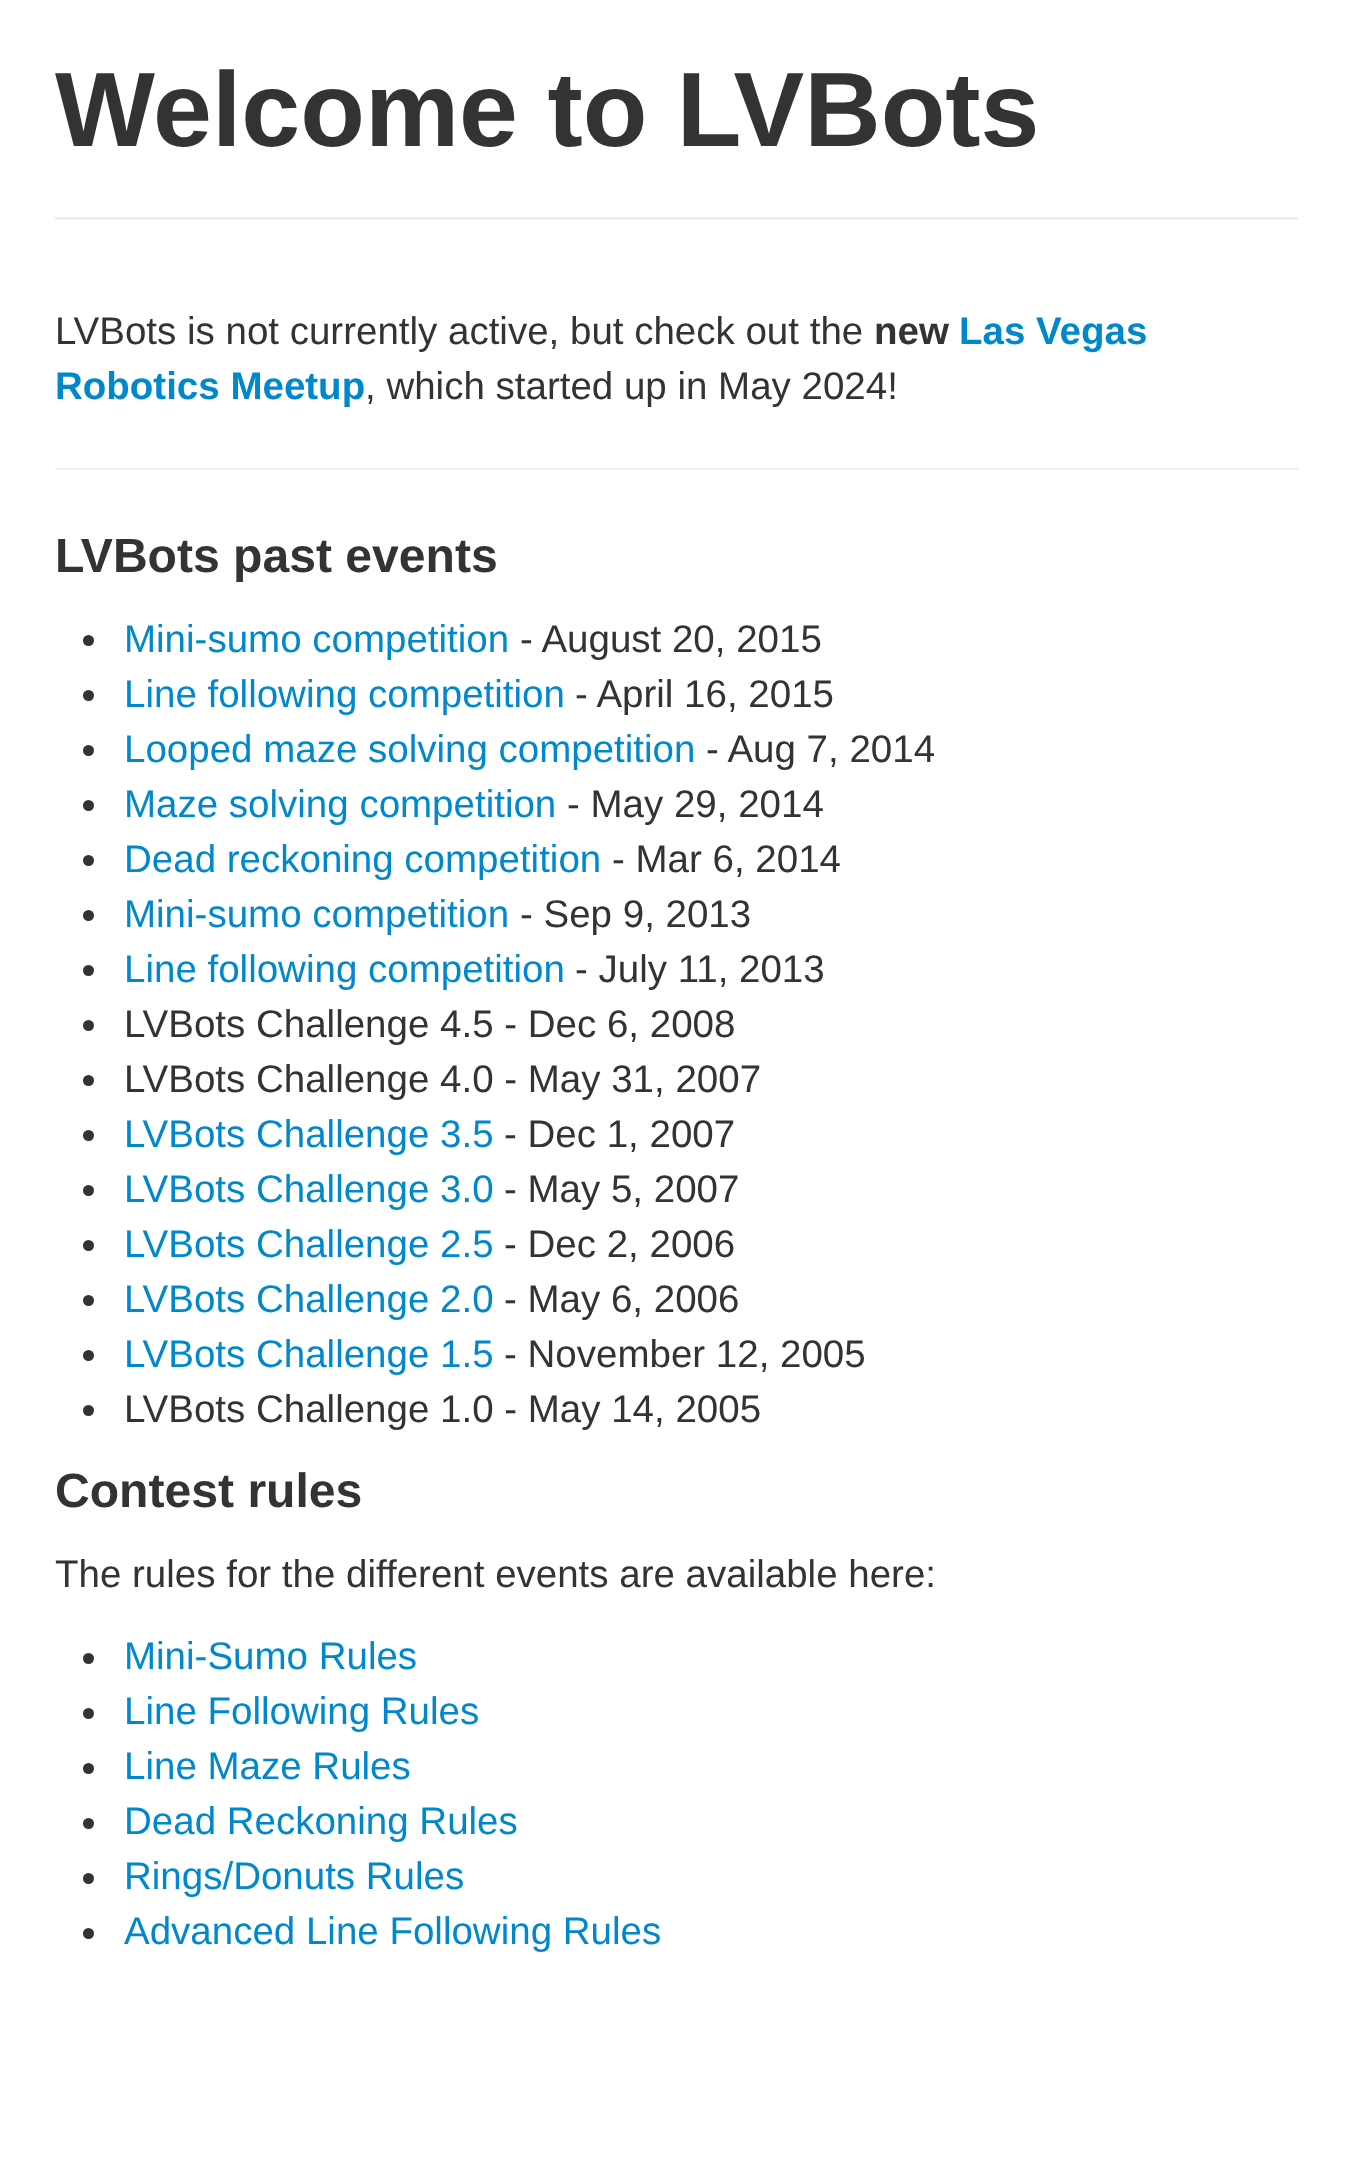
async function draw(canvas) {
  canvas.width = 1353
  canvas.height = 2165
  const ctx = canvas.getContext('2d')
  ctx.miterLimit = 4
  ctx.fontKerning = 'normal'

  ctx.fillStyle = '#fff'
  ctx.fillRect(0, 0, 1353, 2165)
  ctx.fillStyle = '#eee'
  ctx.fillRect(55, 217, 1243, 3)
  ctx.font = 'bold 105.9px Liberation Sans'
  ctx.fillStyle = '#333'
  ctx.fillText('Welcome to LVBots', 55, 146)
  ctx.font = '38.5px Liberation Sans'
  ctx.fillText('LVBots is not currently active, but check out the', 55, 344)
  ctx.font = 'bold 38.5px Liberation Sans'
  ctx.fillText('new', 874, 344)
  ctx.fillStyle = '#08c'
  ctx.fillText('Las Vegas', 959, 344)
  ctx.fillText('Robotics Meetup', 55, 399)
  ctx.font = '38.5px Liberation Sans'
  ctx.fillStyle = '#333'
  ctx.fillText(', which started up in May 2024!', 365, 399)
  ctx.fillStyle = '#eee'
  ctx.fillRect(55, 468, 1243, 2)
  ctx.font = 'bold 48.1px Liberation Sans'
  ctx.fillStyle = '#333'
  ctx.fillText('LVBots past events', 55, 572)
  ctx.beginPath()
  ctx.arc(88.5, 640.5, 5.5, 0, 2 * Math.PI)
  ctx.fill()
  ctx.font = '38.5px Liberation Sans'
  ctx.fillStyle = '#08c'
  ctx.fillText('Mini-sumo competition', 124, 652)
  ctx.fillStyle = '#333'
  ctx.fillText('- August 20, 2015', 520, 652)
  ctx.beginPath()
  ctx.arc(88.5, 695.5, 5.5, 0, 2 * Math.PI)
  ctx.fill()
  ctx.fillStyle = '#08c'
  ctx.fillText('Line following competition', 124, 707)
  ctx.fillStyle = '#333'
  ctx.fillText('- April 16, 2015', 575, 707)
  ctx.beginPath()
  ctx.arc(88.5, 750.5, 5.5, 0, 2 * Math.PI)
  ctx.fill()
  ctx.fillStyle = '#08c'
  ctx.fillText('Looped maze solving competition', 124, 762)
  ctx.fillStyle = '#333'
  ctx.fillText('- Aug 7, 2014', 706, 762)
  ctx.beginPath()
  ctx.arc(88.5, 805.5, 5.5, 0, 2 * Math.PI)
  ctx.fill()
  ctx.fillStyle = '#08c'
  ctx.fillText('Maze solving competition', 124, 817)
  ctx.fillStyle = '#333'
  ctx.fillText('- May 29, 2014', 567, 817)
  ctx.beginPath()
  ctx.arc(88.5, 860.5, 5.5, 0, 2 * Math.PI)
  ctx.fill()
  ctx.fillStyle = '#08c'
  ctx.fillText('Dead reckoning competition', 124, 872)
  ctx.fillStyle = '#333'
  ctx.fillText('- Mar 6, 2014', 612, 872)
  ctx.beginPath()
  ctx.arc(88.5, 915.5, 5.5, 0, 2 * Math.PI)
  ctx.fill()
  ctx.fillStyle = '#08c'
  ctx.fillText('Mini-sumo competition', 124, 927)
  ctx.fillStyle = '#333'
  ctx.fillText('- Sep 9, 2013', 520, 927)
  ctx.beginPath()
  ctx.arc(88.5, 970.5, 5.5, 0, 2 * Math.PI)
  ctx.fill()
  ctx.fillStyle = '#08c'
  ctx.fillText('Line following competition', 124, 982)
  ctx.fillStyle = '#333'
  ctx.fillText('- July 11, 2013', 575, 982)
  ctx.beginPath()
  ctx.arc(88.5, 1025.5, 5.5, 0, 2 * Math.PI)
  ctx.fill()
  ctx.fillText('LVBots Challenge 4.5 - Dec 6, 2008', 124, 1037)
  ctx.beginPath()
  ctx.arc(88.5, 1080.5, 5.5, 0, 2 * Math.PI)
  ctx.fill()
  ctx.fillText('LVBots Challenge 4.0 - May 31, 2007', 124, 1092)
  ctx.beginPath()
  ctx.arc(88.5, 1135.5, 5.5, 0, 2 * Math.PI)
  ctx.fill()
  ctx.fillStyle = '#08c'
  ctx.fillText('LVBots Challenge 3.5', 124, 1147)
  ctx.fillStyle = '#333'
  ctx.fillText('- Dec 1, 2007', 504, 1147)
  ctx.beginPath()
  ctx.arc(88.5, 1190.5, 5.5, 0, 2 * Math.PI)
  ctx.fill()
  ctx.fillStyle = '#08c'
  ctx.fillText('LVBots Challenge 3.0', 124, 1202)
  ctx.fillStyle = '#333'
  ctx.fillText('- May 5, 2007', 504, 1202)
  ctx.beginPath()
  ctx.arc(88.5, 1245.5, 5.5, 0, 2 * Math.PI)
  ctx.fill()
  ctx.fillStyle = '#08c'
  ctx.fillText('LVBots Challenge 2.5', 124, 1257)
  ctx.fillStyle = '#333'
  ctx.fillText('- Dec 2, 2006', 504, 1257)
  ctx.beginPath()
  ctx.arc(88.5, 1300.5, 5.5, 0, 2 * Math.PI)
  ctx.fill()
  ctx.fillStyle = '#08c'
  ctx.fillText('LVBots Challenge 2.0', 124, 1312)
  ctx.fillStyle = '#333'
  ctx.fillText('- May 6, 2006', 504, 1312)
  ctx.beginPath()
  ctx.arc(88.5, 1355.5, 5.5, 0, 2 * Math.PI)
  ctx.fill()
  ctx.fillStyle = '#08c'
  ctx.fillText('LVBots Challenge 1.5', 124, 1367)
  ctx.fillStyle = '#333'
  ctx.fillText('- November 12, 2005', 504, 1367)
  ctx.beginPath()
  ctx.arc(88.5, 1410.5, 5.5, 0, 2 * Math.PI)
  ctx.fill()
  ctx.fillText('LVBots Challenge 1.0 - May 14, 2005', 124, 1422)
  ctx.font = 'bold 48.1px Liberation Sans'
  ctx.fillText('Contest rules', 55, 1507)
  ctx.font = '38.5px Liberation Sans'
  ctx.fillText('The rules for the different events are available here:', 55, 1587)
  ctx.beginPath()
  ctx.arc(88.5, 1658.5, 5.5, 0, 2 * Math.PI)
  ctx.fill()
  ctx.fillStyle = '#08c'
  ctx.fillText('Mini-Sumo Rules', 124, 1669)
  ctx.fillStyle = '#333'
  ctx.beginPath()
  ctx.arc(88.5, 1713.5, 5.5, 0, 2 * Math.PI)
  ctx.fill()
  ctx.fillStyle = '#08c'
  ctx.fillText('Line Following Rules', 124, 1724)
  ctx.fillStyle = '#333'
  ctx.beginPath()
  ctx.arc(88.5, 1768.5, 5.5, 0, 2 * Math.PI)
  ctx.fill()
  ctx.fillStyle = '#08c'
  ctx.fillText('Line Maze Rules', 124, 1779)
  ctx.fillStyle = '#333'
  ctx.beginPath()
  ctx.arc(88.5, 1823.5, 5.5, 0, 2 * Math.PI)
  ctx.fill()
  ctx.fillStyle = '#08c'
  ctx.fillText('Dead Reckoning Rules', 124, 1834)
  ctx.fillStyle = '#333'
  ctx.beginPath()
  ctx.arc(88.5, 1878.5, 5.5, 0, 2 * Math.PI)
  ctx.fill()
  ctx.fillStyle = '#08c'
  ctx.fillText('Rings/Donuts Rules', 124, 1889)
  ctx.fillStyle = '#333'
  ctx.beginPath()
  ctx.arc(88.5, 1933.5, 5.5, 0, 2 * Math.PI)
  ctx.fill()
  ctx.fillStyle = '#08c'
  ctx.fillText('Advanced Line Following Rules', 124, 1944)
}

draw(document.querySelector('canvas'))
